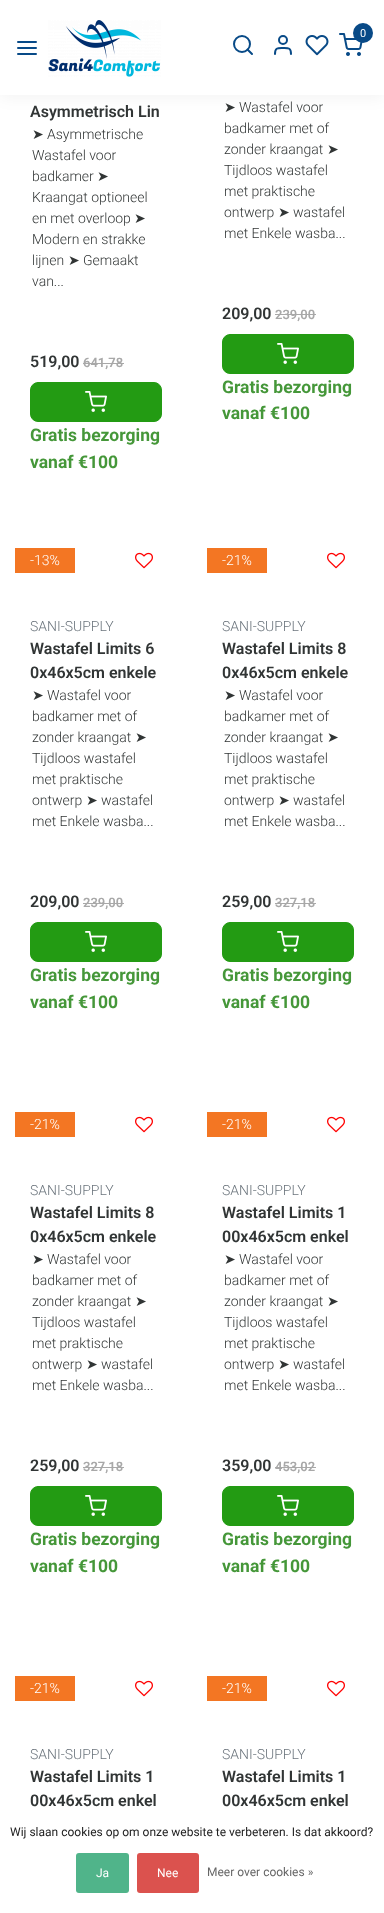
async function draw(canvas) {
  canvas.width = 384
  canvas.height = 1913
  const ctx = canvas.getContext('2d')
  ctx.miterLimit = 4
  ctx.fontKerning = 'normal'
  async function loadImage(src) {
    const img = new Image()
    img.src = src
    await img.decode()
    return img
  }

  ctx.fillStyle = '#fff'
  ctx.fillRect(0, 0, 384, 1913)
  ctx.fillStyle = '#0000000d'
  ctx.filter = 'blur(8px)'
  ctx.beginPath()
  ctx.rect(0, 2, 384, 95)
  ctx.fill()
  ctx.filter = 'none'
  ctx.fillStyle = '#fff'
  ctx.fillRect(0, 0, 384, 95)
  ctx.beginPath()
  ctx.moveTo(18, 48)
  ctx.lineTo(36, 48)
  ctx.moveTo(18, 42)
  ctx.lineTo(36, 42)
  ctx.moveTo(18, 54)
  ctx.lineTo(36, 54)
  ctx.strokeStyle = '#084a87'
  ctx.lineWidth = 2
  ctx.lineCap = 'round'
  ctx.lineJoin = 'round'
  ctx.stroke()
  ctx.drawImage(await loadImage('image0.png'), 48, 20, 113, 57)
  ctx.drawImage(await loadImage('image1.png'), 339, 33, 24, 23)
  ctx.fillStyle = '#084a87'
  ctx.beginPath()
  ctx.arc(363, 33, 10, 0, 2 * Math.PI)
  ctx.fill()
  ctx.font = '11px Roboto'
  ctx.fillStyle = '#fff'
  ctx.fillText('0', 360, 37)
  ctx.beginPath()
  ctx.arc(242, 44, 8, 0, 2 * Math.PI)
  ctx.stroke()
  ctx.beginPath()
  ctx.moveTo(252, 54)
  ctx.lineTo(247.5, 49.5)
  ctx.moveTo(291, 54)
  ctx.bezierCurveTo(291, 47.5, 288.5, 48, 283, 48)
  ctx.bezierCurveTo(277.5, 48, 275, 47.5, 275, 54)
  ctx.stroke()
  ctx.beginPath()
  ctx.arc(283, 40, 4, 0, 2 * Math.PI)
  ctx.stroke()
  ctx.drawImage(await loadImage('image2.png'), 305, 35, 24, 21)
  ctx.font = '600 16px Roboto'
  ctx.fillStyle = '#313535'
  ctx.fillText('Asymmetrisch Lin', 30, 117)
  ctx.font = '14px DejaVu Sans'
  ctx.fillText('➤', 32, 139)
  ctx.font = '300 14px Roboto'
  ctx.fillText('Asymmetrische', 47, 139)
  ctx.fillText('Wastafel voor', 32, 160)
  ctx.fillText('badkamer', 32, 181)
  ctx.font = '14px DejaVu Sans'
  ctx.fillText('➤', 97, 181)
  ctx.font = '300 14px Roboto'
  ctx.fillText('Kraangat optioneel', 32, 202)
  ctx.fillText('en met overloop', 32, 223)
  ctx.font = '14px DejaVu Sans'
  ctx.fillText('➤', 134, 223)
  ctx.font = '300 14px Roboto'
  ctx.fillText('Modern en strakke', 32, 244)
  ctx.fillText('lijnen', 32, 265)
  ctx.font = '14px DejaVu Sans'
  ctx.fillText('➤', 68, 265)
  ctx.font = '300 14px Roboto'
  ctx.fillText('Gemaakt', 83, 265)
  ctx.fillText('van...', 32, 286)
  ctx.font = '600 16px Roboto'
  ctx.fillText('519,00', 30, 367)
  ctx.font = '600 13px Roboto'
  ctx.fillStyle = '#a8a8a8'
  ctx.fillText('641,78', 83, 367)
  ctx.fillRect(83, 363, 41, 1)
  ctx.fillStyle = '#239b13'
  ctx.beginPath()
  ctx.roundRect(30.5, 382.5, 131, 39, 7.5)
  ctx.fill()
  ctx.strokeStyle = '#239b13'
  ctx.lineWidth = 1
  ctx.lineJoin = 'miter'
  ctx.stroke()
  ctx.drawImage(await loadImage('image3.png'), 85, 391, 22, 21)
  ctx.font = 'bold 17.5px Roboto'
  ctx.fillStyle = '#459739'
  ctx.fillText('Gratis bezorging', 30, 441)
  ctx.fillText('vanaf €100', 30, 468)
  ctx.font = '14px DejaVu Sans'
  ctx.fillStyle = '#313535'
  ctx.fillText('➤', 224, 112)
  ctx.font = '300 14px Roboto'
  ctx.fillText('Wastafel voor', 239, 112)
  ctx.fillText('badkamer met of', 224, 133)
  ctx.fillText('zonder kraangat', 224, 154)
  ctx.font = '14px DejaVu Sans'
  ctx.fillText('➤', 327, 154)
  ctx.font = '300 14px Roboto'
  ctx.fillText('Tijdloos wastafel', 224, 175)
  ctx.fillText('met praktische', 224, 196)
  ctx.fillText('ontwerp', 224, 217)
  ctx.font = '14px DejaVu Sans'
  ctx.fillText('➤', 278, 217)
  ctx.font = '300 14px Roboto'
  ctx.fillText('wastafel', 293, 217)
  ctx.fillText('met Enkele wasba...', 224, 238)
  ctx.font = '600 16px Roboto'
  ctx.fillText('209,00', 222, 319)
  ctx.font = '600 13px Roboto'
  ctx.fillStyle = '#a8a8a8'
  ctx.fillText('239,00', 275, 319)
  ctx.fillRect(275, 314, 41, 1)
  ctx.fillStyle = '#239b13'
  ctx.beginPath()
  ctx.roundRect(222.5, 334.5, 131, 39, 7.5)
  ctx.fill()
  ctx.stroke()
  ctx.drawImage(await loadImage('image3.png'), 277, 343, 22, 21)
  ctx.font = 'bold 17.5px Roboto'
  ctx.fillStyle = '#459739'
  ctx.fillText('Gratis bezorging', 222, 393)
  ctx.fillText('vanaf €100', 222, 419)
  ctx.fillStyle = '#f37623'
  ctx.fillRect(15, 548, 60, 25)
  ctx.font = '300 14px Roboto'
  ctx.fillStyle = '#fff'
  ctx.fillText('-13%', 30, 565)
  ctx.drawImage(await loadImage('image4.png'), 135, 552, 18, 17)
  ctx.fillStyle = '#6c757d'
  ctx.fillText('SANI-SUPPLY', 30, 631)
  ctx.font = '600 16px Roboto'
  ctx.fillStyle = '#313535'
  ctx.fillText('Wastafel Limits 6', 30, 654)
  ctx.fillText('0x46x5cm enkele', 30, 678)
  ctx.font = '14px DejaVu Sans'
  ctx.fillText('➤', 32, 700)
  ctx.font = '300 14px Roboto'
  ctx.fillText('Wastafel voor', 47, 700)
  ctx.fillText('badkamer met of', 32, 721)
  ctx.fillText('zonder kraangat', 32, 742)
  ctx.font = '14px DejaVu Sans'
  ctx.fillText('➤', 135, 742)
  ctx.font = '300 14px Roboto'
  ctx.fillText('Tijdloos wastafel', 32, 763)
  ctx.fillText('met praktische', 32, 784)
  ctx.fillText('ontwerp', 32, 805)
  ctx.font = '14px DejaVu Sans'
  ctx.fillText('➤', 86, 805)
  ctx.font = '300 14px Roboto'
  ctx.fillText('wastafel', 101, 805)
  ctx.fillText('met Enkele wasba...', 32, 826)
  ctx.font = '600 16px Roboto'
  ctx.fillText('209,00', 30, 907)
  ctx.font = '600 13px Roboto'
  ctx.fillStyle = '#a8a8a8'
  ctx.fillText('239,00', 83, 907)
  ctx.fillRect(83, 903, 41, 1)
  ctx.fillStyle = '#239b13'
  ctx.beginPath()
  ctx.roundRect(30.5, 922.5, 131, 39, 7.5)
  ctx.fill()
  ctx.stroke()
  ctx.drawImage(await loadImage('image3.png'), 85, 931, 22, 21)
  ctx.font = 'bold 17.5px Roboto'
  ctx.fillStyle = '#459739'
  ctx.fillText('Gratis bezorging', 30, 981)
  ctx.fillText('vanaf €100', 30, 1008)
  ctx.fillStyle = '#f37623'
  ctx.fillRect(207, 548, 60, 25)
  ctx.font = '300 14px Roboto'
  ctx.fillStyle = '#fff'
  ctx.fillText('-21%', 222, 565)
  ctx.drawImage(await loadImage('image4.png'), 327, 552, 18, 17)
  ctx.fillStyle = '#6c757d'
  ctx.fillText('SANI-SUPPLY', 222, 631)
  ctx.font = '600 16px Roboto'
  ctx.fillStyle = '#313535'
  ctx.fillText('Wastafel Limits 8', 222, 654)
  ctx.fillText('0x46x5cm enkele', 222, 678)
  ctx.font = '14px DejaVu Sans'
  ctx.fillText('➤', 224, 700)
  ctx.font = '300 14px Roboto'
  ctx.fillText('Wastafel voor', 239, 700)
  ctx.fillText('badkamer met of', 224, 721)
  ctx.fillText('zonder kraangat', 224, 742)
  ctx.font = '14px DejaVu Sans'
  ctx.fillText('➤', 327, 742)
  ctx.font = '300 14px Roboto'
  ctx.fillText('Tijdloos wastafel', 224, 763)
  ctx.fillText('met praktische', 224, 784)
  ctx.fillText('ontwerp', 224, 805)
  ctx.font = '14px DejaVu Sans'
  ctx.fillText('➤', 278, 805)
  ctx.font = '300 14px Roboto'
  ctx.fillText('wastafel', 293, 805)
  ctx.fillText('met Enkele wasba...', 224, 826)
  ctx.font = '600 16px Roboto'
  ctx.fillText('259,00', 222, 907)
  ctx.font = '600 13px Roboto'
  ctx.fillStyle = '#a8a8a8'
  ctx.fillText('327,18', 275, 907)
  ctx.fillRect(275, 903, 41, 1)
  ctx.fillStyle = '#239b13'
  ctx.beginPath()
  ctx.roundRect(222.5, 922.5, 131, 39, 7.5)
  ctx.fill()
  ctx.stroke()
  ctx.drawImage(await loadImage('image3.png'), 277, 931, 22, 21)
  ctx.font = 'bold 17.5px Roboto'
  ctx.fillStyle = '#459739'
  ctx.fillText('Gratis bezorging', 222, 981)
  ctx.fillText('vanaf €100', 222, 1008)
  ctx.fillStyle = '#f37623'
  ctx.fillRect(15, 1112, 60, 25)
  ctx.font = '300 14px Roboto'
  ctx.fillStyle = '#fff'
  ctx.fillText('-21%', 30, 1129)
  ctx.drawImage(await loadImage('image4.png'), 135, 1116, 18, 17)
  ctx.fillStyle = '#6c757d'
  ctx.fillText('SANI-SUPPLY', 30, 1195)
  ctx.font = '600 16px Roboto'
  ctx.fillStyle = '#313535'
  ctx.fillText('Wastafel Limits 8', 30, 1218)
  ctx.fillText('0x46x5cm enkele', 30, 1242)
  ctx.font = '14px DejaVu Sans'
  ctx.fillText('➤', 32, 1264)
  ctx.font = '300 14px Roboto'
  ctx.fillText('Wastafel voor', 47, 1264)
  ctx.fillText('badkamer met of', 32, 1285)
  ctx.fillText('zonder kraangat', 32, 1306)
  ctx.font = '14px DejaVu Sans'
  ctx.fillText('➤', 135, 1306)
  ctx.font = '300 14px Roboto'
  ctx.fillText('Tijdloos wastafel', 32, 1327)
  ctx.fillText('met praktische', 32, 1348)
  ctx.fillText('ontwerp', 32, 1369)
  ctx.font = '14px DejaVu Sans'
  ctx.fillText('➤', 86, 1369)
  ctx.font = '300 14px Roboto'
  ctx.fillText('wastafel', 101, 1369)
  ctx.fillText('met Enkele wasba...', 32, 1390)
  ctx.font = '600 16px Roboto'
  ctx.fillText('259,00', 30, 1471)
  ctx.font = '600 13px Roboto'
  ctx.fillStyle = '#a8a8a8'
  ctx.fillText('327,18', 83, 1471)
  ctx.fillRect(83, 1467, 41, 1)
  ctx.fillStyle = '#239b13'
  ctx.beginPath()
  ctx.roundRect(30.5, 1486.5, 131, 39, 7.5)
  ctx.fill()
  ctx.stroke()
  ctx.drawImage(await loadImage('image3.png'), 85, 1495, 22, 21)
  ctx.font = 'bold 17.5px Roboto'
  ctx.fillStyle = '#459739'
  ctx.fillText('Gratis bezorging', 30, 1545)
  ctx.fillText('vanaf €100', 30, 1572)
  ctx.fillStyle = '#f37623'
  ctx.fillRect(207, 1112, 60, 25)
  ctx.font = '300 14px Roboto'
  ctx.fillStyle = '#fff'
  ctx.fillText('-21%', 222, 1129)
  ctx.drawImage(await loadImage('image4.png'), 327, 1116, 18, 17)
  ctx.fillStyle = '#6c757d'
  ctx.fillText('SANI-SUPPLY', 222, 1195)
  ctx.font = '600 16px Roboto'
  ctx.fillStyle = '#313535'
  ctx.fillText('Wastafel Limits 1', 222, 1218)
  ctx.fillText('00x46x5cm enkel', 222, 1242)
  ctx.font = '14px DejaVu Sans'
  ctx.fillText('➤', 224, 1264)
  ctx.font = '300 14px Roboto'
  ctx.fillText('Wastafel voor', 239, 1264)
  ctx.fillText('badkamer met of', 224, 1285)
  ctx.fillText('zonder kraangat', 224, 1306)
  ctx.font = '14px DejaVu Sans'
  ctx.fillText('➤', 327, 1306)
  ctx.font = '300 14px Roboto'
  ctx.fillText('Tijdloos wastafel', 224, 1327)
  ctx.fillText('met praktische', 224, 1348)
  ctx.fillText('ontwerp', 224, 1369)
  ctx.font = '14px DejaVu Sans'
  ctx.fillText('➤', 278, 1369)
  ctx.font = '300 14px Roboto'
  ctx.fillText('wastafel', 293, 1369)
  ctx.fillText('met Enkele wasba...', 224, 1390)
  ctx.font = '600 16px Roboto'
  ctx.fillText('359,00', 222, 1471)
  ctx.font = '600 13px Roboto'
  ctx.fillStyle = '#a8a8a8'
  ctx.fillText('453,02', 275, 1471)
  ctx.fillRect(275, 1467, 41, 1)
  ctx.fillStyle = '#239b13'
  ctx.beginPath()
  ctx.roundRect(222.5, 1486.5, 131, 39, 7.5)
  ctx.fill()
  ctx.stroke()
  ctx.drawImage(await loadImage('image3.png'), 277, 1495, 22, 21)
  ctx.font = 'bold 17.5px Roboto'
  ctx.fillStyle = '#459739'
  ctx.fillText('Gratis bezorging', 222, 1545)
  ctx.fillText('vanaf €100', 222, 1572)
  ctx.fillStyle = '#f37623'
  ctx.fillRect(15, 1676, 60, 25)
  ctx.font = '300 14px Roboto'
  ctx.fillStyle = '#fff'
  ctx.fillText('-21%', 30, 1693)
  ctx.drawImage(await loadImage('image4.png'), 135, 1680, 18, 17)
  ctx.fillStyle = '#6c757d'
  ctx.fillText('SANI-SUPPLY', 30, 1759)
  ctx.font = '600 16px Roboto'
  ctx.fillStyle = '#313535'
  ctx.fillText('Wastafel Limits 1', 30, 1782)
  ctx.fillText('00x46x5cm enkel', 30, 1806)
  ctx.fillStyle = '#f37623'
  ctx.fillRect(207, 1676, 60, 25)
  ctx.font = '300 14px Roboto'
  ctx.fillStyle = '#fff'
  ctx.fillText('-21%', 222, 1693)
  ctx.drawImage(await loadImage('image4.png'), 327, 1680, 18, 17)
  ctx.fillStyle = '#6c757d'
  ctx.fillText('SANI-SUPPLY', 222, 1759)
  ctx.font = '600 16px Roboto'
  ctx.fillStyle = '#313535'
  ctx.fillText('Wastafel Limits 1', 222, 1782)
  ctx.fillText('00x46x5cm enkel', 222, 1806)
  ctx.font = '12px Roboto'
  ctx.fillStyle = '#222'
  ctx.fillText('Wij slaan cookies op om onze website te verbeteren. Is dat akkoord?', 10, 1836)
  ctx.fillStyle = '#50b48a'
  ctx.beginPath()
  ctx.roundRect(76, 1853, 53, 40, 3)
  ctx.fill()
  ctx.fillStyle = '#fff'
  ctx.fillText('Ja', 96, 1877)
  ctx.fillStyle = '#db524e'
  ctx.beginPath()
  ctx.roundRect(137, 1853, 62, 40, 3)
  ctx.fill()
  ctx.fillStyle = '#fff'
  ctx.fillText('Nee', 157, 1877)
  ctx.fillStyle = '#666'
  ctx.fillText('Meer over cookies »', 207, 1876)
}

draw(document.querySelector('canvas'))
